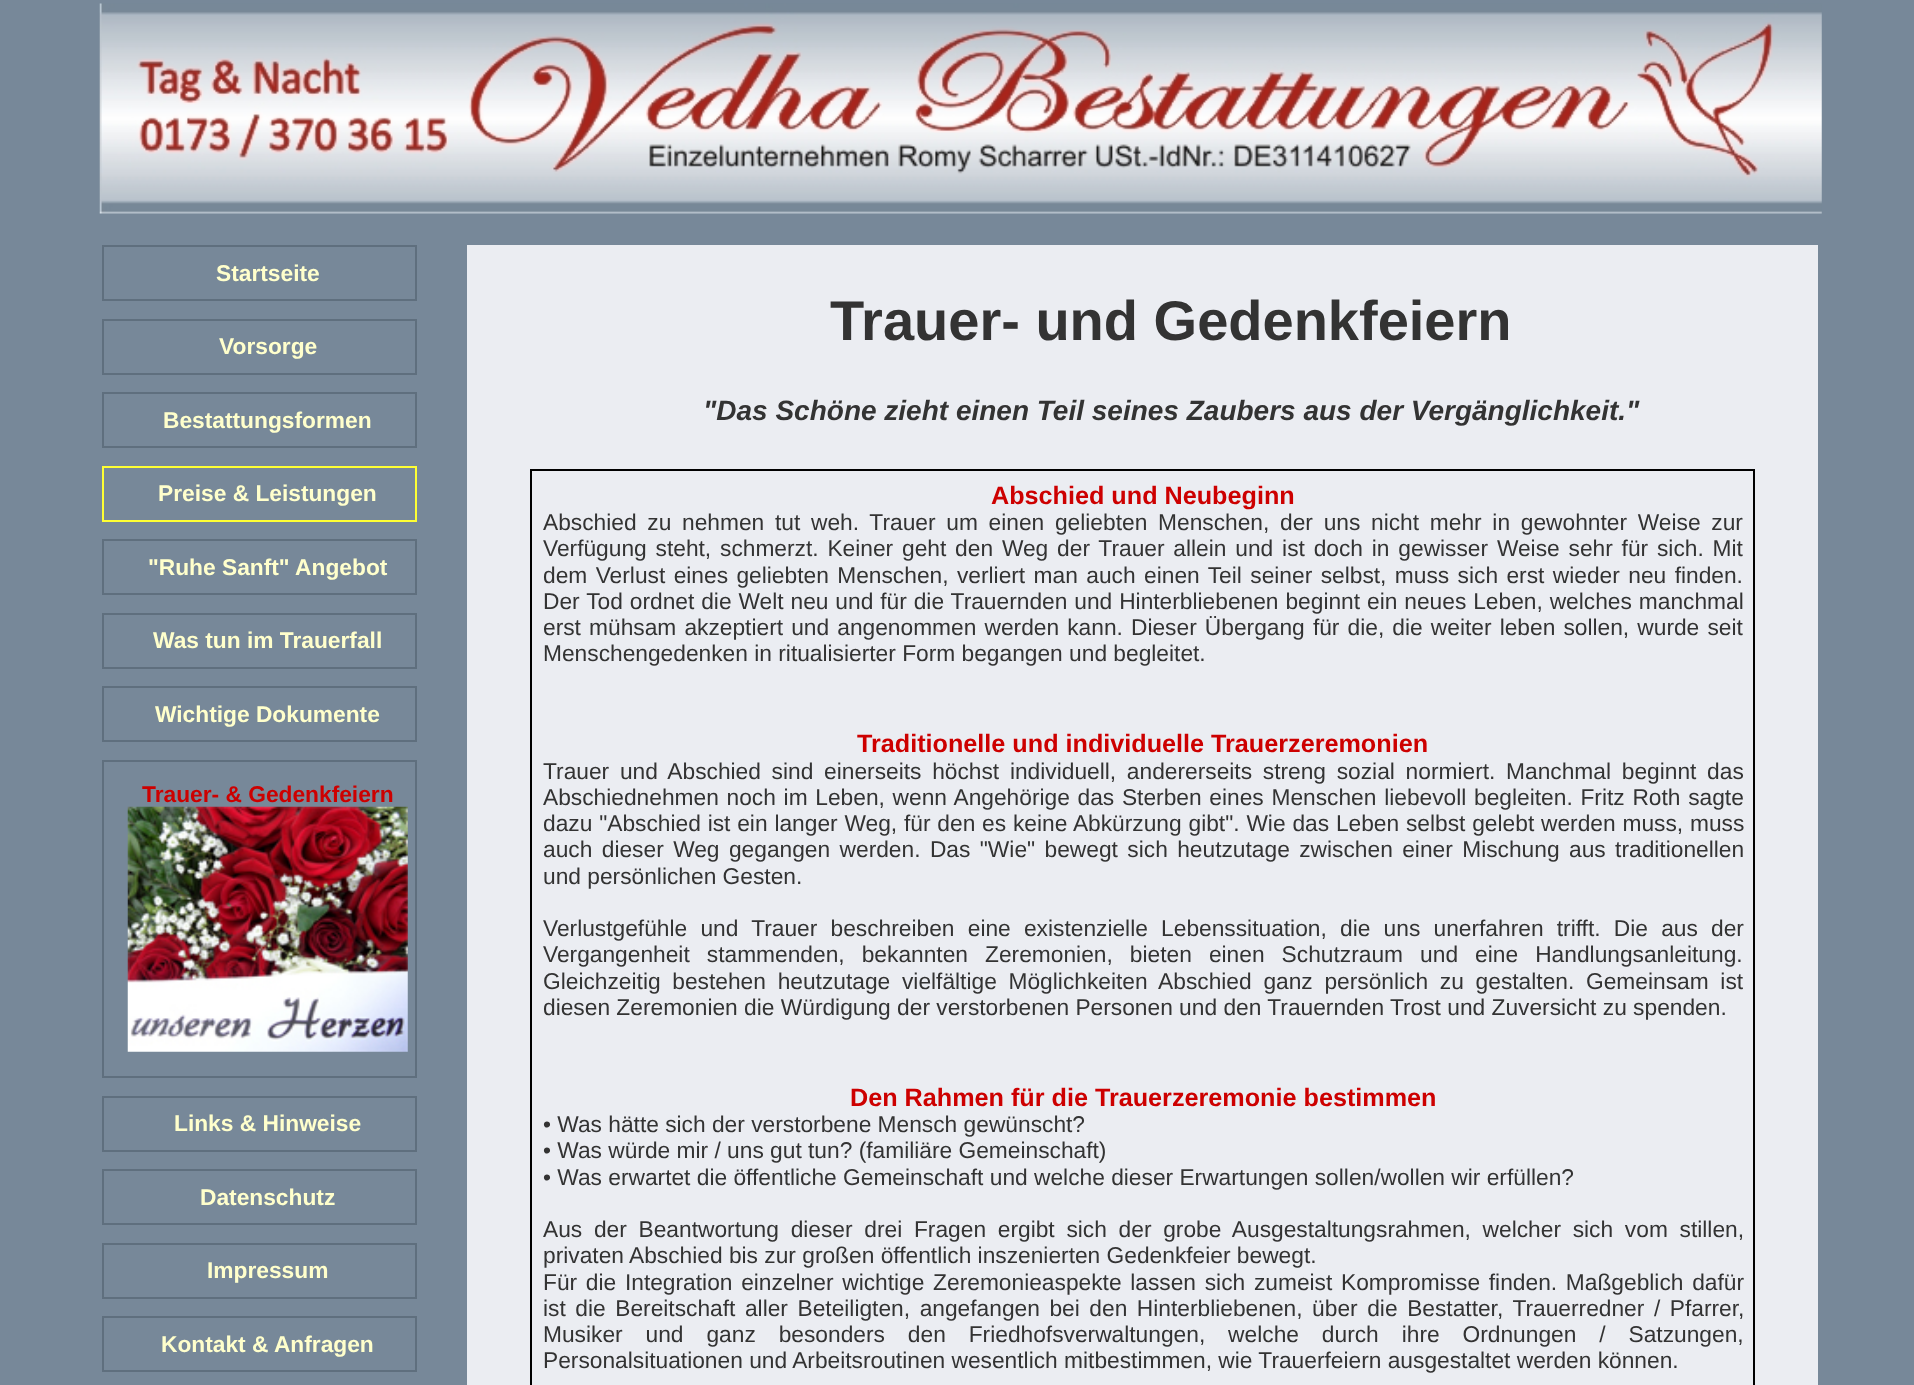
async function draw(canvas) {
  canvas.width = 1914
  canvas.height = 1385
  const ctx = canvas.getContext('2d')
  ctx.miterLimit = 4
  ctx.fontKerning = 'normal'
  async function loadImage(src) {
    const img = new Image()
    img.src = src
    await img.decode()
    return img
  }

  ctx.fillStyle = '#789'
  ctx.fillRect(0, 0, 1914, 1385)
  ctx.drawImage(await loadImage('image0.png'), 99, 3, 1723, 211)
  ctx.strokeStyle = '#5f6f7e'
  ctx.lineWidth = 2
  ctx.strokeRect(103, 246, 313, 54)
  ctx.font = 'bold 22.75px Liberation Sans'
  ctx.fillStyle = '#ffc'
  ctx.fillText('Startseite', 216, 281)
  ctx.strokeRect(103, 320, 313, 54)
  ctx.fillText('Vorsorge', 219, 354)
  ctx.strokeRect(103, 393, 313, 54)
  ctx.fillText('Bestattungsformen', 163, 428)
  ctx.strokeStyle = '#ff3'
  ctx.strokeRect(103, 467, 313, 54)
  ctx.fillText('Preise & Leistungen', 158, 501)
  ctx.strokeStyle = '#5f6f7e'
  ctx.strokeRect(103, 540, 313, 54)
  ctx.fillText('"Ruhe Sanft" Angebot', 148, 575)
  ctx.strokeRect(103, 614, 313, 54)
  ctx.fillText('Was tun im Trauerfall', 153, 648)
  ctx.strokeRect(103, 687, 313, 54)
  ctx.fillText('Wichtige Dokumente', 155, 722)
  ctx.strokeRect(103, 761, 313, 316)
  ctx.fillStyle = '#cd0000'
  ctx.fillText('Trauer- & Gedenkfeiern', 142, 802)
  ctx.drawImage(await loadImage('image1.png'), 127, 806, 281, 246)
  ctx.strokeRect(103, 1097, 313, 54)
  ctx.fillStyle = '#ffc'
  ctx.fillText('Links & Hinweise', 174, 1131)
  ctx.strokeRect(103, 1170, 313, 54)
  ctx.fillText('Datenschutz', 200, 1205)
  ctx.strokeRect(103, 1244, 313, 54)
  ctx.fillText('Impressum', 207, 1278)
  ctx.strokeRect(103, 1317, 313, 54)
  ctx.fillText('Kontakt & Anfragen', 161, 1352)
  ctx.fillStyle = '#ebedf2'
  ctx.fillRect(467, 245, 1351, 1140)
  ctx.font = 'bold 56px Liberation Sans'
  ctx.fillStyle = '#333'
  ctx.fillText('Trauer- und Gedenkfeiern', 830, 340)
  ctx.font = 'italic bold 28px Liberation Sans'
  ctx.fillText('"Das Schöne zieht einen Teil seines Zaubers aus der Vergänglichkeit."', 703, 420)
  ctx.strokeStyle = '#000'
  ctx.strokeRect(531, 470, 1223, 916)
  ctx.font = 'bold 25.2px Liberation Sans'
  ctx.fillStyle = '#cd0000'
  ctx.fillText('Abschied und Neubeginn', 991, 504)
  ctx.wordSpacing = '4.4px'
  ctx.font = '22.75px Liberation Sans'
  ctx.fillStyle = '#333'
  ctx.fillText('Abschied zu nehmen tut weh. Trauer um einen geliebten Menschen, der uns nicht mehr in gewohnter Weise zur', 543, 530)
  ctx.wordSpacing = '2.5px'
  ctx.fillText('Verfügung steht, schmerzt. Keiner geht den Weg der Trauer allein und ist doch in gewisser Weise sehr für sich. Mit', 543, 556)
  ctx.wordSpacing = '2.1px'
  ctx.fillText('dem Verlust eines geliebten Menschen, verliert man auch einen Teil seiner selbst, muss sich erst wieder neu finden.', 543, 583)
  ctx.wordSpacing = '0.6px'
  ctx.fillText('Der Tod ordnet die Welt neu und für die Trauernden und Hinterbliebenen beginnt ein neues Leben, welches manchmal', 543, 609)
  ctx.wordSpacing = '1.8px'
  ctx.fillText('erst mühsam akzeptiert und angenommen werden kann. Dieser Übergang für die, die weiter leben sollen, wurde seit', 543, 635)
  ctx.wordSpacing = '0px'
  ctx.fillText('Menschengedenken in ritualisierter Form begangen und begleitet.', 543, 661)
  ctx.font = 'bold 25.2px Liberation Sans'
  ctx.fillStyle = '#cd0000'
  ctx.fillText('Traditionelle und individuelle Trauerzeremonien', 857, 752)
  ctx.wordSpacing = '4.4px'
  ctx.font = '22.75px Liberation Sans'
  ctx.fillStyle = '#333'
  ctx.fillText('Trauer und Abschied sind einerseits höchst individuell, andererseits streng sozial normiert. Manchmal beginnt das', 543, 779)
  ctx.wordSpacing = '1.4px'
  ctx.fillText('Abschiednehmen noch im Leben, wenn Angehörige das Sterben eines Menschen liebevoll begleiten. Fritz Roth sagte', 543, 805)
  ctx.wordSpacing = '0.5px'
  ctx.fillText('dazu "Abschied ist ein langer Weg, für den es keine Abkürzung gibt". Wie das Leben selbst gelebt werden muss, muss', 543, 831)
  ctx.wordSpacing = '3.1px'
  ctx.fillText('auch dieser Weg gegangen werden. Das "Wie" bewegt sich heutzutage zwischen einer Mischung aus traditionellen', 543, 857)
  ctx.wordSpacing = '0px'
  ctx.fillText('und persönlichen Gesten.', 543, 884)
  ctx.wordSpacing = '6.9px'
  ctx.fillText('Verlustgefühle und Trauer beschreiben eine existenzielle Lebenssituation, die uns unerfahren trifft. Die aus der', 543, 936)
  ctx.wordSpacing = '10.75px'
  ctx.fillText('Vergangenheit stammenden, bekannten Zeremonien, bieten einen Schutzraum und eine Handlungsanleitung.', 543, 962)
  ctx.wordSpacing = '5.4px'
  ctx.fillText('Gleichzeitig bestehen heutzutage vielfältige Möglichkeiten Abschied ganz persönlich zu gestalten. Gemeinsam ist', 543, 989)
  ctx.wordSpacing = '0px'
  ctx.fillText('diesen Zeremonien die Würdigung der verstorbenen Personen und den Trauernden Trost und Zuversicht zu spenden.', 543, 1015)
  ctx.font = 'bold 25.2px Liberation Sans'
  ctx.fillStyle = '#cd0000'
  ctx.fillText('Den Rahmen für die Trauerzeremonie bestimmen', 850, 1106)
  ctx.font = '22.75px Liberation Sans'
  ctx.fillStyle = '#333'
  ctx.fillText('• Was hätte sich der verstorbene Mensch gewünscht?', 543, 1132)
  ctx.fillText('• Was würde mir / uns gut tun? (familiäre Gemeinschaft)', 543, 1158)
  ctx.fillText('• Was erwartet die öffentliche Gemeinschaft und welche dieser Erwartungen sollen/wollen wir erfüllen?', 543, 1185)
  ctx.wordSpacing = '5.4px'
  ctx.fillText('Aus der Beantwortung dieser drei Fragen ergibt sich der grobe Ausgestaltungsrahmen, welcher sich vom stillen,', 543, 1237)
  ctx.wordSpacing = '0px'
  ctx.fillText('privaten Abschied bis zur großen öffentlich inszenierten Gedenkfeier bewegt.', 543, 1263)
  ctx.wordSpacing = '2.4px'
  ctx.fillText('Für die Integration einzelner wichtige Zeremonieaspekte lassen sich zumeist Kompromisse finden. Maßgeblich dafür', 543, 1290)
  ctx.wordSpacing = '3.25px'
  ctx.fillText('ist die Bereitschaft aller Beteiligten, angefangen bei den Hinterbliebenen, über die Bestatter, Trauerredner / Pfarrer,', 543, 1316)
  ctx.wordSpacing = '16.6px'
  ctx.fillText('Musiker und ganz besonders den Friedhofsverwaltungen, welche durch ihre Ordnungen / Satzungen,', 543, 1342)
  ctx.wordSpacing = '0px'
  ctx.fillText('Personalsituationen und Arbeitsroutinen wesentlich mitbestimmen, wie Trauerfeiern ausgestaltet werden können.', 543, 1368)
}

draw(document.querySelector('canvas'))
